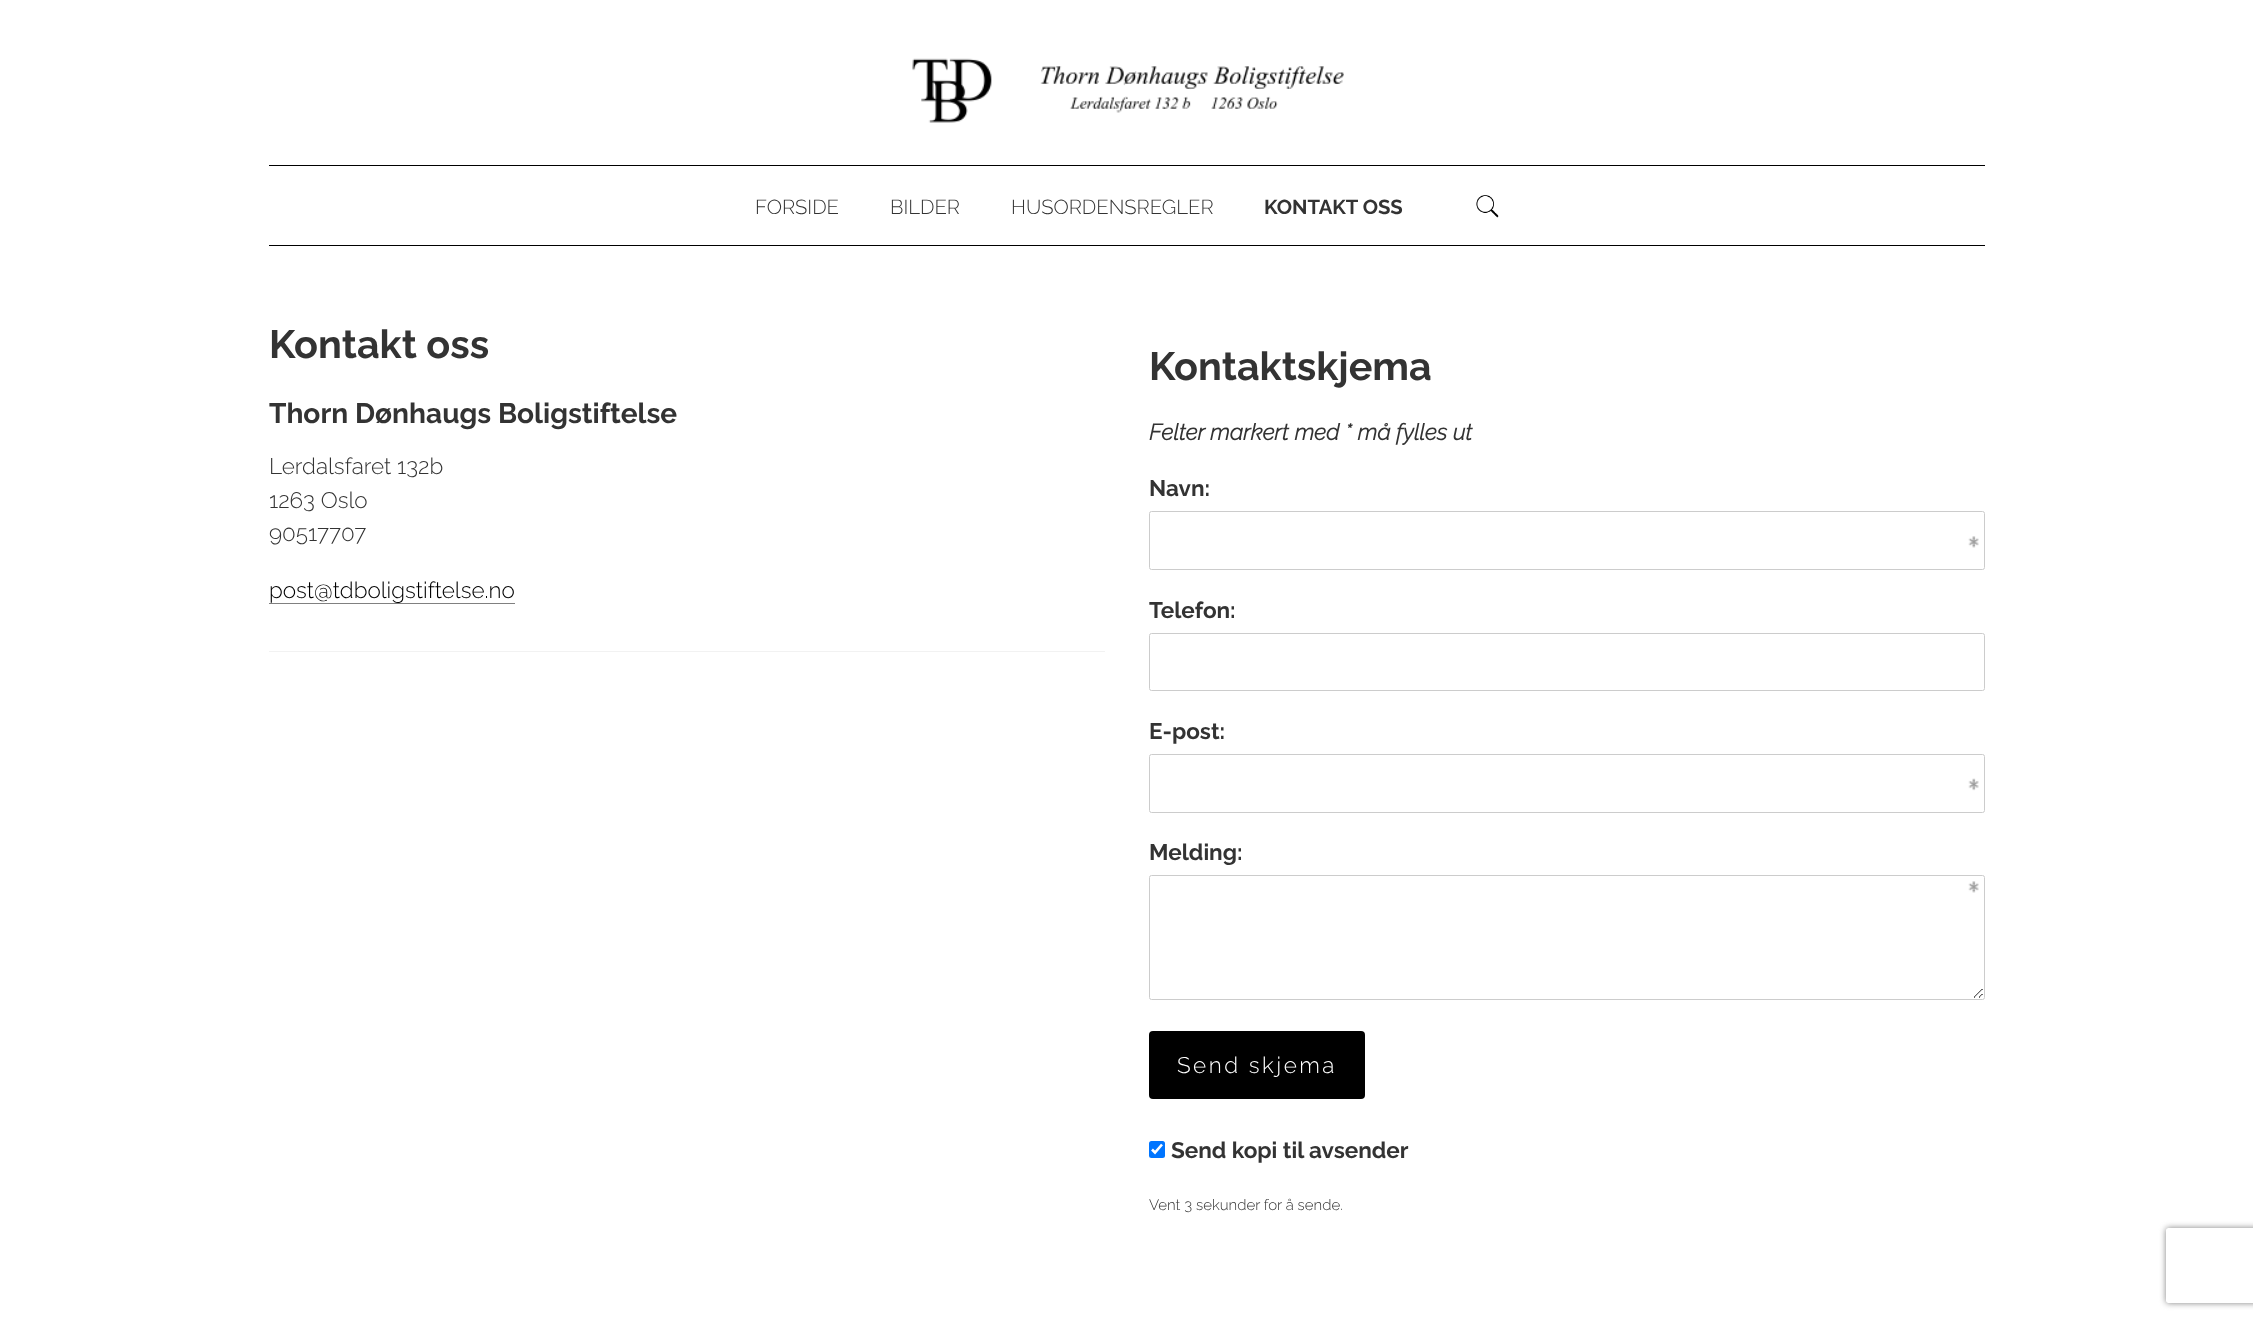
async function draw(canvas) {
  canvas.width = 2253
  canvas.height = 1320
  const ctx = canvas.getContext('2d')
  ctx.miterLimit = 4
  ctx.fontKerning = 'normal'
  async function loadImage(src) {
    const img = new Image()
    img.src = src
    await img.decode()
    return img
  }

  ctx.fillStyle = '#fff'
  ctx.fillRect(0, 0, 2253, 1320)
  ctx.drawImage(await loadImage('image0.png'), 912, 58, 432, 65)
  ctx.fillStyle = '#000'
  ctx.fillRect(269, 165, 1716, 1)
  ctx.fillRect(269, 245, 1716, 1)
  ctx.font = '300 20.25px Raleway'
  ctx.fillStyle = '#333'
  ctx.fillText('FORSIDE', 755, 214)
  ctx.fillText('BILDER', 890, 214)
  ctx.fillText('HUSORDENSREGLER', 1011, 214)
  ctx.font = 'bold 20.25px Raleway'
  ctx.fillText('KONTAKT OSS', 1264, 214)
  ctx.drawImage(await loadImage('image1.png'), 1476, 195, 23, 23)
  ctx.font = 'bold 39.5px Raleway'
  ctx.fillText('Kontakt oss', 269, 358)
  ctx.font = 'bold 28.1px Raleway'
  ctx.fillText('Thorn Dønhaugs Boligstiftelse', 269, 423)
  ctx.font = '300 22.5px Raleway'
  ctx.fillText('Lerdalsfaret 132b', 269, 474)
  ctx.fillText('1263 Oslo', 269, 508)
  ctx.fillText('90517707', 269, 541)
  ctx.fillStyle = '#000'
  ctx.fillText('post@tdboligstiftelse.no', 269, 598)
  ctx.fillStyle = '#808080'
  ctx.fillRect(269, 603, 246, 1)
  ctx.fillStyle = '#f2f2f2'
  ctx.fillRect(269, 651, 836, 1)
  ctx.font = 'bold 39.5px Raleway'
  ctx.fillStyle = '#333'
  ctx.fillText('Kontaktskjema', 1149, 380)
  ctx.font = 'italic bold 22.5px Raleway'
  ctx.fillText('Felter markert med * må fylles ut', 1149, 440)
  ctx.font = 'bold 22.5px Raleway'
  ctx.fillText('Navn:', 1149, 496)
  ctx.drawImage(await loadImage('image2.png'), 1968, 536, 11, 12)
  ctx.beginPath()
  ctx.roundRect(1149.5, 511.5, 835, 58, 2)
  ctx.strokeStyle = '#ccc'
  ctx.stroke()
  ctx.fillText('Telefon:', 1149, 618)
  ctx.beginPath()
  ctx.roundRect(1149.5, 633.5, 835, 57, 2)
  ctx.stroke()
  ctx.fillText('E-post:', 1149, 739)
  ctx.drawImage(await loadImage('image3.png'), 1968, 778, 11, 13)
  ctx.beginPath()
  ctx.roundRect(1149.5, 754.5, 835, 58, 2)
  ctx.stroke()
  ctx.fillText('Melding:', 1149, 860)
  ctx.drawImage(await loadImage('image4.png'), 1968, 881, 15, 117)
  ctx.beginPath()
  ctx.roundRect(1149.5, 875.5, 835, 124, 2)
  ctx.stroke()
  ctx.fillStyle = '#000'
  ctx.beginPath()
  ctx.roundRect(1149, 1031, 216, 68, 4)
  ctx.fill()
  ctx.letterSpacing = '2.5px'
  ctx.font = '300 22.5px Raleway'
  ctx.fillStyle = '#fff'
  ctx.fillText('Send skjema', 1177, 1073)
  ctx.fillStyle = '#0075ff'
  ctx.beginPath()
  ctx.roundRect(1149, 1141, 16, 17, 2.5)
  ctx.fill()
  ctx.beginPath()
  ctx.moveTo(1152, 1149.5)
  ctx.lineTo(1155, 1152.5)
  ctx.lineTo(1162, 1144.5)
  ctx.strokeStyle = '#fff'
  ctx.lineWidth = 2.6
  ctx.stroke()
  ctx.letterSpacing = '0px'
  ctx.font = 'bold 22.5px Raleway'
  ctx.fillStyle = '#333'
  ctx.fillText('Send kopi til avsender', 1171, 1158)
  ctx.font = '300 15px Raleway'
  ctx.fillText('Vent 3 sekunder for å sende.', 1149, 1210)
  ctx.save()
  ctx.beginPath()
  ctx.moveTo(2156, 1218)
  ctx.lineTo(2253, 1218)
  ctx.lineTo(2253, 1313)
  ctx.lineTo(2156, 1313)
  ctx.closePath()
  ctx.moveTo(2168.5, 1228)
  ctx.lineTo(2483.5, 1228)
  ctx.bezierCurveTo(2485, 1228, 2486, 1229, 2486, 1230.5)
  ctx.lineTo(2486, 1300.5)
  ctx.bezierCurveTo(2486, 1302, 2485, 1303, 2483.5, 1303)
  ctx.lineTo(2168.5, 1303)
  ctx.bezierCurveTo(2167, 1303, 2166, 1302, 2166, 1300.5)
  ctx.lineTo(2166, 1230.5)
  ctx.bezierCurveTo(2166, 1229, 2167, 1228, 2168.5, 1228)
  ctx.closePath()
  ctx.clip('evenodd')
  ctx.fillStyle = '#808080'
  ctx.filter = 'blur(3px)'
  ctx.beginPath()
  ctx.roundRect(2166, 1228, 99, 75, 2.5)
  ctx.fill()
  ctx.filter = 'none'
  ctx.restore()
}

draw(document.querySelector('canvas'))
